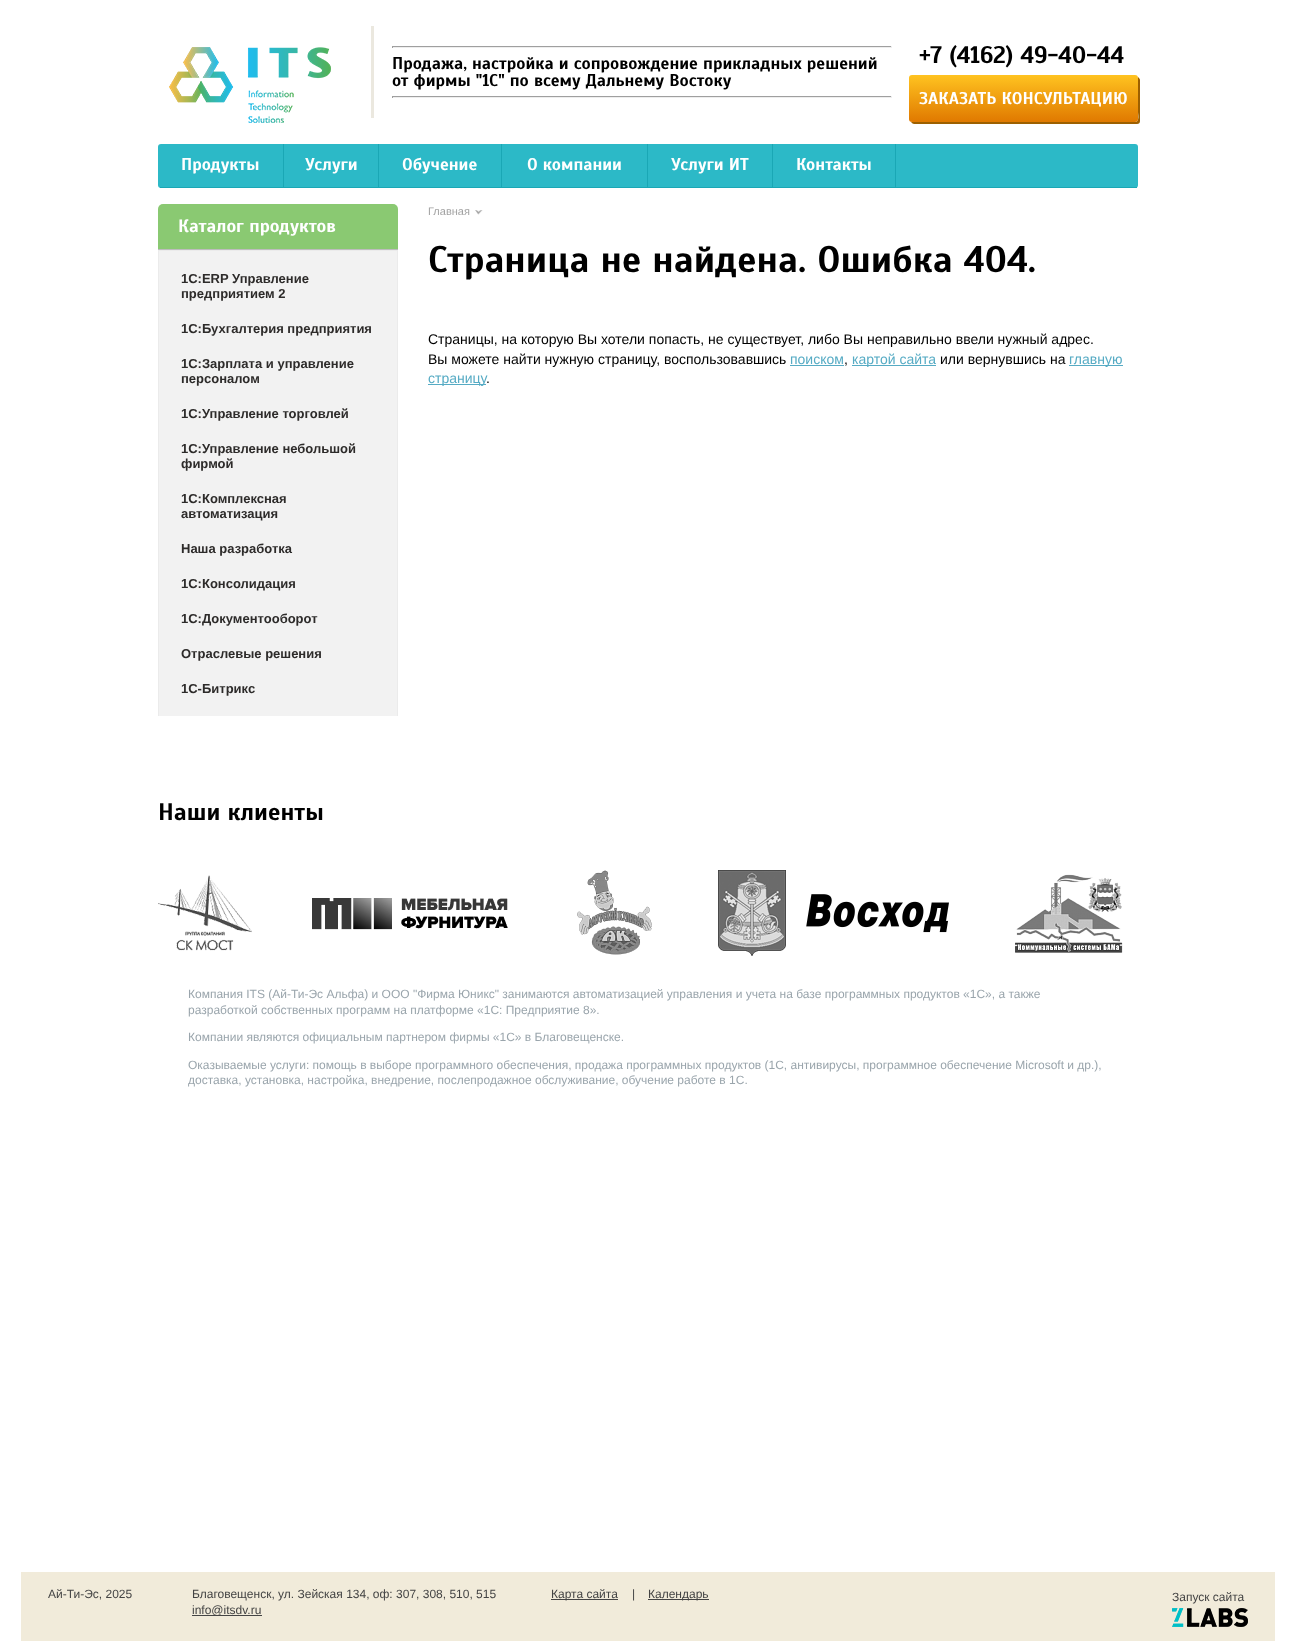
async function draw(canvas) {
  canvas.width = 1296
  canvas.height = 1641
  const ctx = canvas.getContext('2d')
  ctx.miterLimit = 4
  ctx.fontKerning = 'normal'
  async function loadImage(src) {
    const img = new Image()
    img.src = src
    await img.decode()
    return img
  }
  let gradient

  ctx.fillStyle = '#fff'
  ctx.fillRect(0, 0, 1296, 1641)
  ctx.drawImage(await loadImage('image0.png'), 169, 47, 162, 76)
  ctx.fillStyle = '#ebe8df'
  ctx.fillRect(371, 26, 3, 92)
  ctx.fillStyle = '#9f9f9f'
  ctx.fillRect(392, 46, 500, 1)
  ctx.fillStyle = '#eee'
  ctx.fillRect(891, 46, 1, 2)
  ctx.fillRect(392, 47, 500, 1)
  ctx.fillStyle = '#9f9f9f'
  ctx.fillRect(392, 46, 1, 2)
  ctx.font = 'bold 17px Scada'
  ctx.fillStyle = '#000'
  ctx.fillText('Продажа, настройка и сопровождение прикладных решений', 392, 69)
  ctx.fillText('от фирмы "1С" по всему Дальнему Востоку', 392, 86)
  ctx.fillStyle = '#9f9f9f'
  ctx.fillRect(392, 96, 500, 1)
  ctx.fillStyle = '#eee'
  ctx.fillRect(891, 96, 1, 2)
  ctx.fillRect(392, 97, 500, 1)
  ctx.fillStyle = '#9f9f9f'
  ctx.fillRect(392, 96, 1, 2)
  ctx.font = 'bold 24px Scada'
  ctx.fillStyle = '#000'
  ctx.fillText('+7 (4162) 49-40-44', 919, 63)
  ctx.fillStyle = '#9d6000'
  ctx.beginPath()
  ctx.moveTo(911, 122)
  ctx.bezierCurveTo(912, 123, 913, 124, 914, 124)
  ctx.lineTo(1137, 124)
  ctx.bezierCurveTo(1139, 124, 1140, 123, 1140, 121)
  ctx.lineTo(1140, 80)
  ctx.bezierCurveTo(1140, 79, 1139, 78, 1138, 77)
  ctx.lineTo(1138, 112)
  ctx.bezierCurveTo(1138, 114, 1140, 122, 1135, 122)
  ctx.closePath()
  ctx.fill()
  gradient = ctx.createLinearGradient(1024, 122, 1024, 75)
  gradient.addColorStop(0, '#e07900')
  gradient.addColorStop(1, '#ffc320')
  ctx.fillStyle = gradient
  ctx.beginPath()
  ctx.roundRect(909, 75, 229, 47, 3)
  ctx.fill()
  ctx.font = 'bold 17px Scada'
  ctx.fillStyle = '#fff'
  ctx.fillText('ЗАКАЗАТЬ КОНСУЛЬТАЦИЮ', 919, 104)
  ctx.fillStyle = '#2cb9c7'
  ctx.beginPath()
  ctx.roundRect(158, 144, 980, 44, 3)
  ctx.fill()
  ctx.fillStyle = '#1aa7b5'
  ctx.fillRect(160, 187, 977, 1)
  ctx.fillRect(283, 144, 1, 43)
  ctx.fillStyle = '#fff'
  ctx.fillText('Продукты', 181, 170)
  ctx.fillStyle = '#1aa7b5'
  ctx.fillRect(378, 144, 1, 43)
  ctx.fillStyle = '#fff'
  ctx.fillText('Услуги', 305, 170)
  ctx.fillStyle = '#1aa7b5'
  ctx.fillRect(501, 144, 1, 43)
  ctx.fillStyle = '#fff'
  ctx.fillText('Обучение', 402, 170)
  ctx.fillStyle = '#1aa7b5'
  ctx.fillRect(647, 144, 1, 43)
  ctx.fillStyle = '#fff'
  ctx.fillText('О компании', 527, 170)
  ctx.fillStyle = '#1aa7b5'
  ctx.fillRect(772, 144, 1, 43)
  ctx.fillStyle = '#fff'
  ctx.fillText('Услуги ИТ', 671, 170)
  ctx.fillStyle = '#1aa7b5'
  ctx.fillRect(895, 144, 1, 43)
  ctx.fillStyle = '#fff'
  ctx.fillText('Контакты', 796, 170)
  ctx.fillStyle = '#8ac972'
  ctx.beginPath()
  ctx.roundRect(158, 204, 240, 46, [5, 5, 0, 0])
  ctx.fill()
  ctx.fillStyle = '#bdbdbd'
  ctx.fillRect(158, 249, 240, 1)
  ctx.font = 'bold 18px Scada'
  ctx.fillStyle = '#fff'
  ctx.fillText('Каталог продуктов', 178, 232)
  ctx.fillStyle = '#f2f2f2'
  ctx.fillRect(159, 251, 238, 465)
  ctx.fillStyle = '#ebebeb'
  ctx.fillRect(158, 250, 240, 1)
  ctx.fillRect(397, 250, 1, 466)
  ctx.fillRect(158, 250, 1, 466)
  ctx.font = 'bold 13px Liberation Sans'
  ctx.fillStyle = '#2d2b2a'
  ctx.fillText('1С:ERP Управление', 181, 283)
  ctx.fillText('предприятием 2', 181, 298)
  ctx.fillText('1С:Бухгалтерия предприятия', 181, 333)
  ctx.fillText('1С:Зарплата и управление', 181, 368)
  ctx.fillText('персоналом', 181, 383)
  ctx.fillText('1С:Управление торговлей', 181, 418)
  ctx.fillText('1С:Управление небольшой', 181, 453)
  ctx.fillText('фирмой', 181, 468)
  ctx.fillText('1С:Комплексная', 181, 503)
  ctx.fillText('автоматизация', 181, 518)
  ctx.fillText('Наша разработка', 181, 553)
  ctx.fillText('1С:Консолидация', 181, 588)
  ctx.fillText('1С:Документооборот', 181, 623)
  ctx.fillText('Отраслевые решения', 181, 658)
  ctx.fillText('1С-Битрикс', 181, 693)
  ctx.drawImage(await loadImage('image1.png'), 475, 210, 8, 5)
  ctx.font = '11px Liberation Sans'
  ctx.fillStyle = '#a2a2a2'
  ctx.fillText('Главная', 428, 215)
  ctx.font = 'bold 37px Scada'
  ctx.fillStyle = '#000'
  ctx.fillText('Страница не найдена. Ошибка 404.', 428, 272)
  ctx.font = '14px Liberation Sans'
  ctx.fillText('Страницы, на которую Вы хотели попасть, не существует, либо Вы неправильно ввели нужный адрес.', 428, 344)
  ctx.fillText('Вы можете найти нужную страницу, воспользовавшись', 428, 364)
  ctx.fillStyle = '#56abc4'
  ctx.fillText('поиском', 790, 364)
  ctx.fillRect(790, 365, 54, 1)
  ctx.fillStyle = '#000'
  ctx.fillText(',', 844, 364)
  ctx.fillStyle = '#56abc4'
  ctx.fillRect(852, 365, 84, 1)
  ctx.fillText('картой сайта', 852, 364)
  ctx.fillStyle = '#000'
  ctx.fillText('или вернувшись на', 940, 364)
  ctx.fillStyle = '#56abc4'
  ctx.fillRect(1069, 365, 54, 1)
  ctx.fillText('главную', 1069, 364)
  ctx.fillRect(428, 384, 58, 1)
  ctx.fillText('страницу', 428, 383)
  ctx.fillStyle = '#000'
  ctx.fillText('.', 486, 383)
  ctx.font = 'bold 24px Scada'
  ctx.fillText('Наши клиенты', 158, 820)
  ctx.drawImage(await loadImage('image2.png'), 158, 875, 94, 76)
  ctx.drawImage(await loadImage('image3.png'), 312, 898, 196, 32)
  ctx.drawImage(await loadImage('image4.png'), 577, 870, 75, 85)
  ctx.drawImage(await loadImage('image5.png'), 718, 870, 231, 86)
  ctx.drawImage(await loadImage('image6.png'), 1015, 874, 108, 79)
  ctx.font = '12px Liberation Sans'
  ctx.fillStyle = '#9aa5ac'
  ctx.fillText('Компания ITS (Ай-Ти-Эс Альфа) и ООО "Фирма Юникс" занимаются автоматизацией управления и учета на базе программных продуктов «1С», а также', 188, 998)
  ctx.fillText('разработкой собственных программ на платформе «1С: Предприятие 8».', 188, 1014)
  ctx.fillText('Компании являются официальным партнером фирмы «1С» в Благовещенске.', 188, 1041)
  ctx.fillText('Оказываемые услуги: помощь в выборе программного обеспечения, продажа программных продуктов (1С, антивирусы, программное обеспечение Microsoft и др.),', 188, 1069)
  ctx.fillText('доставка, установка, настройка, внедрение, послепродажное обслуживание, обучение работе в 1С.', 188, 1084)
  ctx.fillStyle = '#f1ebda'
  ctx.fillRect(21, 1572, 1254, 69)
  ctx.fillStyle = '#444'
  ctx.fillText('Ай-Ти-Эс, 2025', 48, 1598)
  ctx.fillText('Благовещенск, ул. Зейская 134, оф: 307, 308, 510, 515', 192, 1598)
  ctx.fillRect(192, 1615, 70, 1)
  ctx.fillText('info@itsdv.ru', 192, 1614)
  ctx.fillRect(551, 1599, 67, 1)
  ctx.fillText('Карта сайта', 551, 1598)
  ctx.fillText('|', 632, 1598)
  ctx.fillRect(648, 1599, 61, 1)
  ctx.fillText('Календарь', 648, 1598)
  ctx.fillText('Запуск сайта', 1172, 1601)
  ctx.drawImage(await loadImage('image7.png'), 1172, 1608, 76, 19)
}

draw(document.querySelector('canvas'))
